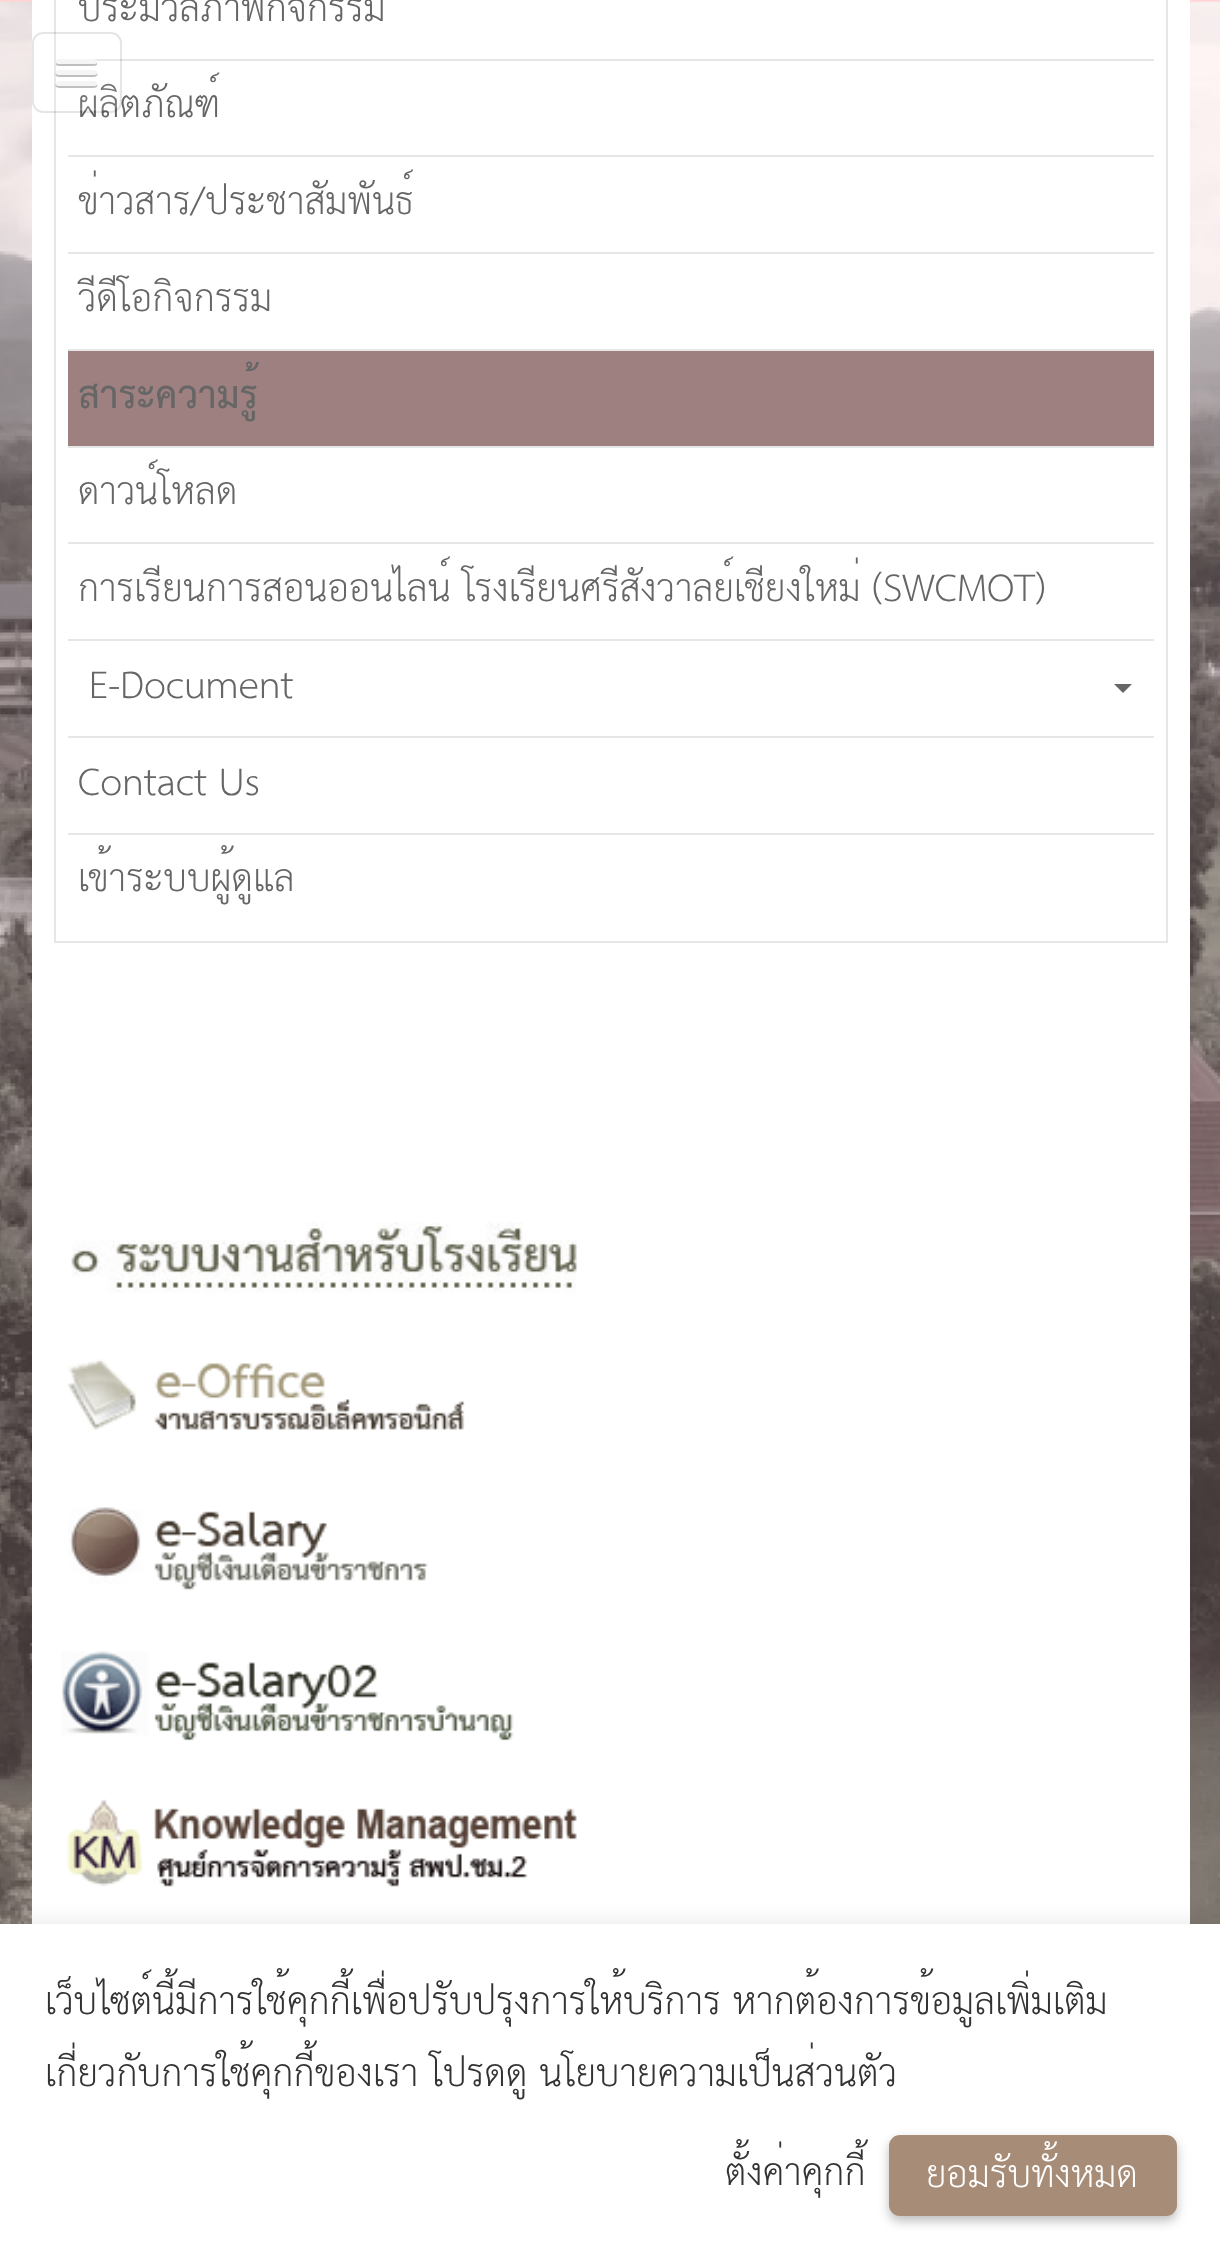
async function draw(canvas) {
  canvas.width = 1220
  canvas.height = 2261
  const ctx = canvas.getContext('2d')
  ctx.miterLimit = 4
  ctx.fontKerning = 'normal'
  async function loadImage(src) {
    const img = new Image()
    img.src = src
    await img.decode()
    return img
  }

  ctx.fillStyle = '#ffd5d5'
  ctx.fillRect(0, 0, 1220, 2261)
  ctx.drawImage(await loadImage('image0.png'), 0, 1, 1220, 1923)
  ctx.fillStyle = '#fff'
  ctx.fillRect(32, 0, 1158, 1924)
  ctx.strokeStyle = '#e6e6e6'
  ctx.lineWidth = 2
  ctx.strokeRect(55, -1, 1112, 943)
  ctx.font = '36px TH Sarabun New'
  ctx.fillStyle = '#666'
  ctx.fillText('ประมวลภาพกิจกรรม', 78, 21)
  ctx.fillStyle = '#e6e6e6'
  ctx.fillRect(94, 59, 1060, 2)
  ctx.fillStyle = '#666'
  ctx.fillText('ผลิตภัณฑ์', 78, 117)
  ctx.fillStyle = '#e6e6e6'
  ctx.fillRect(68, 155, 1086, 2)
  ctx.fillStyle = '#666'
  ctx.fillText('ข่าวสาร/ประชาสัมพันธ์', 78, 214)
  ctx.fillStyle = '#e6e6e6'
  ctx.fillRect(68, 252, 1086, 2)
  ctx.save()
  ctx.beginPath()
  ctx.rect(68, 254, 1086, 95)
  ctx.clip()
  ctx.fillStyle = '#666'
  ctx.fillText('วีดีโอกิจกรรม', 78, 311)
  ctx.restore()
  ctx.fillRect(68, 349, 1086, 2)
  ctx.fillStyle = '#9f8080'
  ctx.fillRect(68, 351, 1086, 95)
  ctx.font = 'bold 36px TH Sarabun New'
  ctx.fillStyle = '#666'
  ctx.fillText('สาระความรู้', 78, 408)
  ctx.fillStyle = '#e6e6e6'
  ctx.fillRect(68, 446, 1086, 2)
  ctx.font = '36px TH Sarabun New'
  ctx.fillStyle = '#666'
  ctx.fillText('ดาวน์โหลด', 78, 504)
  ctx.fillStyle = '#e6e6e6'
  ctx.fillRect(68, 542, 1086, 2)
  ctx.fillStyle = '#666'
  ctx.fillText('การเรียนการสอนออนไลน์ โรงเรียนศรีสังวาลย์เชียงใหม่ (SWCMOT)', 78, 601)
  ctx.fillStyle = '#e6e6e6'
  ctx.fillRect(68, 639, 1086, 2)
  ctx.fillStyle = '#666'
  ctx.fillText('E-Document', 89, 698)
  ctx.beginPath()
  ctx.moveTo(1114, 684)
  ctx.lineTo(1132, 684)
  ctx.lineTo(1123, 693)
  ctx.closePath()
  ctx.fill()
  ctx.fillStyle = '#e6e6e6'
  ctx.fillRect(68, 736, 1086, 2)
  ctx.fillStyle = '#666'
  ctx.fillText('Contact Us', 78, 795)
  ctx.fillStyle = '#e6e6e6'
  ctx.fillRect(68, 833, 1086, 2)
  ctx.fillStyle = '#666'
  ctx.fillText('เข้าระบบผู้ดูแล', 78, 891)
  ctx.drawImage(await loadImage('image1.png'), 71, 1222, 506, 71)
  ctx.drawImage(await loadImage('image2.png'), 67, 1359, 398, 71)
  ctx.drawImage(await loadImage('image3.png'), 68, 1507, 360, 83)
  ctx.drawImage(await loadImage('image4.png'), 61, 1651, 453, 90)
  ctx.drawImage(await loadImage('image5.png'), 67, 1799, 510, 88)
  ctx.beginPath()
  ctx.roundRect(33, 33, 88, 79, 10)
  ctx.strokeStyle = '#0000001a'
  ctx.stroke()
  ctx.fillStyle = '#ffffff1a'
  ctx.beginPath()
  ctx.roundRect(34, 34, 85, 76, 9)
  ctx.fill()
  ctx.beginPath()
  ctx.roundRect(35, 35, 83, 74, 8)
  ctx.strokeStyle = '#ffffff1a'
  ctx.stroke()
  ctx.fillStyle = '#bfbfbf'
  ctx.beginPath()
  ctx.moveTo(57, 62)
  ctx.bezierCurveTo(52, 67, 64, 66, 64, 66)
  ctx.lineTo(88, 66)
  ctx.bezierCurveTo(89, 66, 101, 67, 96, 62)
  ctx.lineTo(95, 63)
  ctx.lineTo(58, 63)
  ctx.closePath()
  ctx.fill()
  ctx.fillStyle = '#f5f5f5'
  ctx.beginPath()
  ctx.roundRect(56, 59, 41, 5, 2.5)
  ctx.fill()
  ctx.fillStyle = '#bfbfbf'
  ctx.beginPath()
  ctx.moveTo(56, 73)
  ctx.bezierCurveTo(53, 78, 64, 77, 64, 77)
  ctx.lineTo(88, 77)
  ctx.bezierCurveTo(89, 77, 100, 78, 97, 73)
  ctx.bezierCurveTo(96, 74, 95, 74, 94, 74)
  ctx.lineTo(58, 74)
  ctx.bezierCurveTo(58, 74, 57, 74, 56, 73)
  ctx.closePath()
  ctx.fill()
  ctx.fillStyle = '#f5f5f5'
  ctx.beginPath()
  ctx.roundRect(56, 70, 41, 5, 2.5)
  ctx.fill()
  ctx.fillStyle = '#00000040'
  ctx.beginPath()
  ctx.moveTo(56, 84)
  ctx.bezierCurveTo(53, 89, 64, 88, 64, 88)
  ctx.lineTo(88, 88)
  ctx.bezierCurveTo(89, 88, 100, 89, 97, 84)
  ctx.bezierCurveTo(96, 85, 95, 86, 94, 86)
  ctx.lineTo(58, 86)
  ctx.bezierCurveTo(58, 86, 57, 85, 56, 84)
  ctx.closePath()
  ctx.fill()
  ctx.fillStyle = '#f5f5f5'
  ctx.beginPath()
  ctx.roundRect(56, 81, 41, 5, 2.5)
  ctx.fill()
  ctx.fillStyle = '#0000001a'
  ctx.filter = 'blur(11px)'
  ctx.beginPath()
  ctx.rect(0, 1924, 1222, 337)
  ctx.fill()
  ctx.filter = 'none'
  ctx.fillStyle = '#fff'
  ctx.fillRect(0, 1924, 1220, 337)
  ctx.fillStyle = '#333'
  ctx.fillText('เว็บไซต์นี้มีการใช้คุกกี้เพื่อปรับปรุงการให้บริการ หากต้องการข้อมูลเพิ่มเติม', 45, 2014)
  ctx.fillText('เกี่ยวกับการใช้คุกกี้ของเรา โปรดดู นโยบายความเป็นส่วนตัว', 45, 2086)
  ctx.fillText('ตั้งค่าคุกกี้', 725, 2185)
  ctx.fillStyle = '#00000042'
  ctx.filter = 'blur(5.5px)'
  ctx.beginPath()
  ctx.roundRect(889, 2140, 288, 81, 11)
  ctx.fill()
  ctx.filter = 'none'
  ctx.fillStyle = '#a78d78'
  ctx.beginPath()
  ctx.roundRect(890, 2136, 286, 79, 10)
  ctx.fill()
  ctx.strokeStyle = '#a78d78'
  ctx.stroke()
  ctx.fillStyle = '#fff'
  ctx.fillText('ยอมรับทั้งหมด', 926, 2187)
}

draw(document.querySelector('canvas'))
